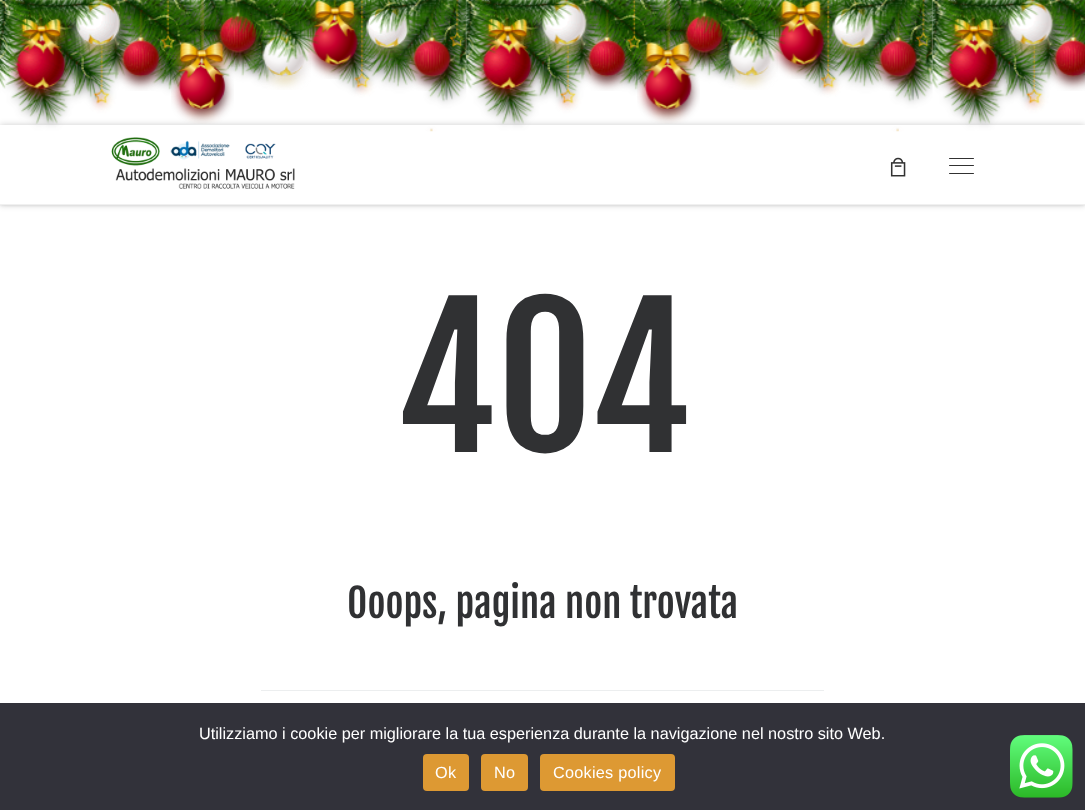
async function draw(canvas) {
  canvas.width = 1085
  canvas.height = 810
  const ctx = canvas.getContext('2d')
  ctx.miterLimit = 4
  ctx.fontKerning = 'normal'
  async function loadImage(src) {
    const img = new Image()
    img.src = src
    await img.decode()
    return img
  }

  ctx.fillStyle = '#fff'
  ctx.fillRect(0, 0, 1085, 810)
  ctx.fillStyle = '#66666614'
  ctx.filter = 'blur(1px)'
  ctx.beginPath()
  ctx.rect(0, 128, 1085, 78)
  ctx.fill()
  ctx.filter = 'none'
  ctx.fillStyle = '#00000033'
  ctx.filter = 'blur(3px)'
  ctx.beginPath()
  ctx.rect(0, 125, 1085, 80)
  ctx.fill()
  ctx.filter = 'none'
  ctx.fillStyle = '#fff'
  ctx.fillRect(0, 125, 1085, 79)
  ctx.drawImage(await loadImage('image0.png'), 0, 0, 1085, 132)
  ctx.drawImage(await loadImage('image2.png'), 8, 0, 65, 102)
  ctx.drawImage(await loadImage('image1.png'), 0, 0, 32, 89)
  ctx.drawImage(await loadImage('image4.png'), 67, 0, 62, 58)
  ctx.drawImage(await loadImage('image3.png'), 31, 0, 76, 33)
  ctx.drawImage(await loadImage('image5.png'), 171, 0, 63, 124)
  ctx.drawImage(await loadImage('image6.png'), 212, 0, 51, 67)
  ctx.drawImage(await loadImage('image12.png'), 255, 7, 56, 83)
  ctx.drawImage(await loadImage('image7.png'), 221, 0, 36, 38)
  ctx.drawImage(await loadImage('image9.png'), 304, 0, 61, 79)
  ctx.drawImage(await loadImage('image8.png'), 256, 0, 64, 63)
  ctx.drawImage(await loadImage('image10.png'), 359, 0, 57, 61)
  ctx.drawImage(await loadImage('image11.png'), 115, 11, 51, 80)
  ctx.drawImage(await loadImage('image15.png'), 406, 12, 52, 79)
  ctx.drawImage(await loadImage('image13.png'), 361, 0, 98, 35)
  ctx.drawImage(await loadImage('image14.png'), 458, 0, 9, 86)
  ctx.drawImage(await loadImage('image17.png'), 474, 0, 65, 102)
  ctx.drawImage(await loadImage('image16.png'), 466, 0, 33, 89)
  ctx.drawImage(await loadImage('image19.png'), 534, 0, 61, 58)
  ctx.drawImage(await loadImage('image18.png'), 497, 0, 77, 33)
  ctx.drawImage(await loadImage('image20.png'), 637, 0, 63, 124)
  ctx.drawImage(await loadImage('image21.png'), 678, 0, 51, 67)
  ctx.drawImage(await loadImage('image27.png'), 722, 7, 56, 83)
  ctx.drawImage(await loadImage('image22.png'), 687, 0, 36, 38)
  ctx.drawImage(await loadImage('image24.png'), 771, 0, 60, 79)
  ctx.drawImage(await loadImage('image23.png'), 722, 0, 64, 63)
  ctx.drawImage(await loadImage('image25.png'), 825, 0, 57, 61)
  ctx.drawImage(await loadImage('image26.png'), 581, 11, 51, 80)
  ctx.drawImage(await loadImage('image30.png'), 873, 12, 51, 79)
  ctx.drawImage(await loadImage('image28.png'), 827, 0, 99, 35)
  ctx.drawImage(await loadImage('image29.png'), 924, 0, 9, 86)
  ctx.drawImage(await loadImage('image32.png'), 941, 0, 64, 102)
  ctx.drawImage(await loadImage('image31.png'), 932, 0, 33, 89)
  ctx.drawImage(await loadImage('image34.png'), 1000, 0, 61, 58)
  ctx.drawImage(await loadImage('image33.png'), 963, 0, 77, 33)
  ctx.drawImage(await loadImage('image35.png'), 1047, 11, 38, 80)
  ctx.drawImage(await loadImage('image36.png'), 111, 137, 184, 52)
  ctx.drawImage(await loadImage('image37.png'), 890, 157, 16, 20)
  ctx.fillStyle = '#313131'
  ctx.beginPath()
  ctx.roundRect(949, 158, 25, 1, 0.5)
  ctx.fill()
  ctx.beginPath()
  ctx.roundRect(949, 165, 25, 1, 0.5)
  ctx.fill()
  ctx.beginPath()
  ctx.roundRect(949, 173, 25, 1, 0.5)
  ctx.fill()
  ctx.fillStyle = '#f0f0f0'
  ctx.fillRect(0, 204, 1085, 1)
  ctx.font = '188px Fjalla One'
  ctx.fillStyle = '#303133'
  ctx.fillText('404', 396, 452)
  ctx.font = '38.9px Fjalla One'
  ctx.fillText('Ooops, pagina non trovata', 347, 618)
  ctx.fillStyle = '#eceeef'
  ctx.fillRect(261, 690, 563, 1)
  ctx.fillStyle = '#32323a'
  ctx.fillRect(0, 703, 1085, 107)
  ctx.font = '16.25px Liberation Sans'
  ctx.fillStyle = '#fff'
  ctx.fillText('Utilizziamo i cookie per migliorare la tua esperienza durante la navigazione nel nostro sito Web.', 199, 739)
  ctx.fillStyle = '#d93'
  ctx.beginPath()
  ctx.roundRect(423, 754, 46, 37, 4)
  ctx.fill()
  ctx.letterSpacing = '0.25px'
  ctx.fillStyle = '#fff'
  ctx.fillText('Ok', 435, 778)
  ctx.fillStyle = '#d93'
  ctx.beginPath()
  ctx.roundRect(481, 754, 47, 37, 4)
  ctx.fill()
  ctx.fillStyle = '#fff'
  ctx.fillText('No', 494, 778)
  ctx.fillStyle = '#d93'
  ctx.beginPath()
  ctx.roundRect(540, 754, 135, 37, 4)
  ctx.fill()
  ctx.fillStyle = '#fff'
  ctx.fillText('Cookies policy', 553, 778)
  ctx.drawImage(await loadImage('image38.png'), 1010, 735, 63, 63)
}

draw(document.querySelector('canvas'))
